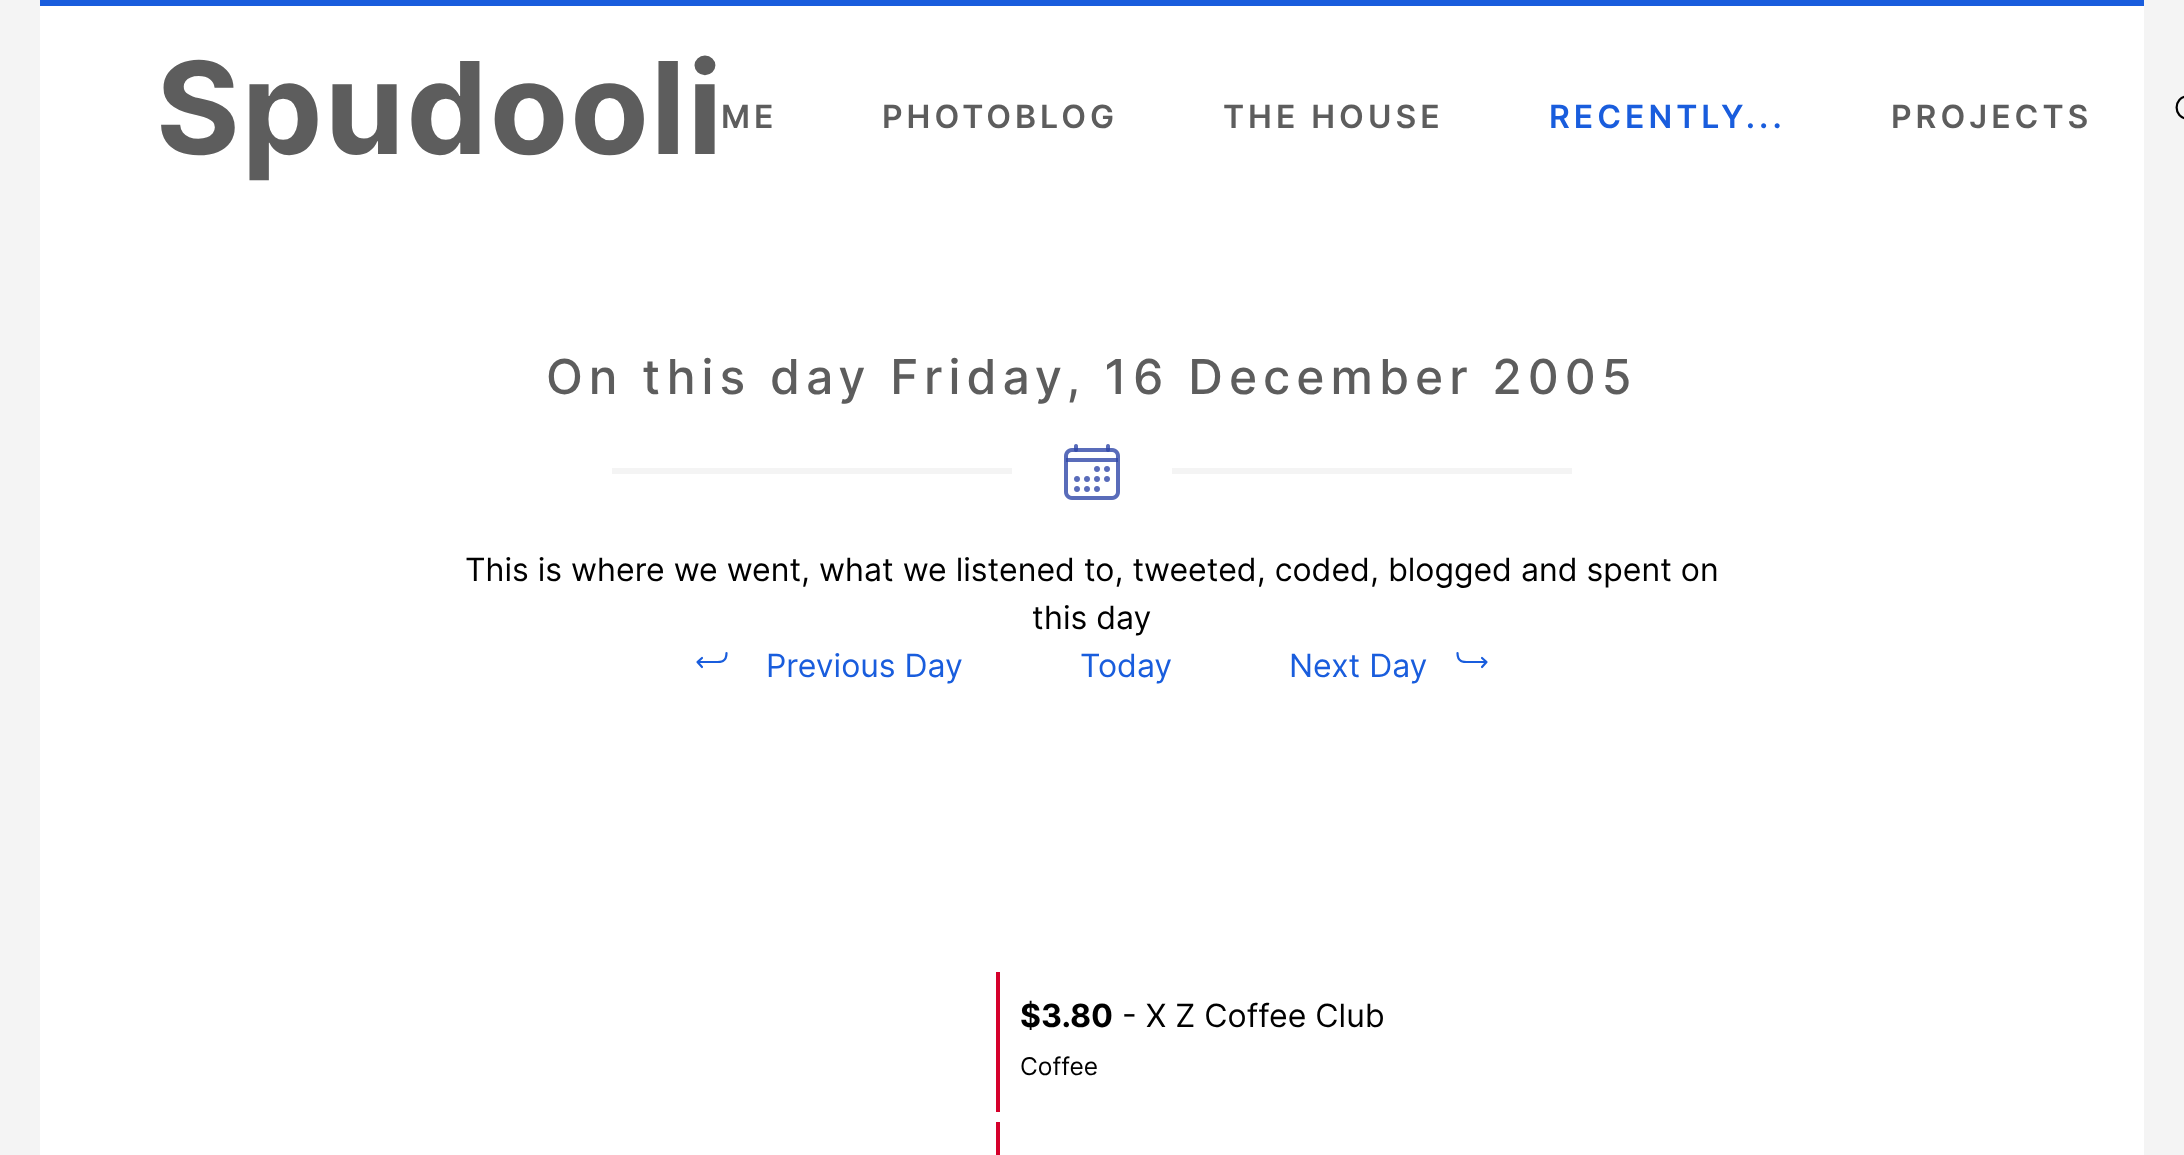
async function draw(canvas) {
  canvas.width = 2184
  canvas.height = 1155
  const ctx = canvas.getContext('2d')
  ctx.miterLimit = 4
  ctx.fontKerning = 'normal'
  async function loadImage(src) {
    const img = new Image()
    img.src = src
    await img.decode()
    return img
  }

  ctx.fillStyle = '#f4f4f4'
  ctx.fillRect(0, 0, 2184, 1155)
  ctx.fillStyle = '#195ddd'
  ctx.fillRect(40, 0, 2104, 6)
  ctx.fillStyle = '#fff'
  ctx.fillRect(40, 6, 2104, 1149)
  ctx.letterSpacing = '2px'
  ctx.font = 'bold 128px Inter'
  ctx.fillStyle = '#5d5d5d'
  ctx.fillText('Spudooli', 156, 154)
  ctx.letterSpacing = '4px'
  ctx.font = '600 32px Inter'
  ctx.fillText('ME', 721, 128)
  ctx.fillText('PHOTOBLOG', 882, 128)
  ctx.fillText('THE HOUSE', 1223, 128)
  ctx.fillStyle = '#195ddd'
  ctx.fillText('RECENTLY...', 1549, 128)
  ctx.fillStyle = '#5d5d5d'
  ctx.fillText('PROJECTS', 1891, 128)
  ctx.beginPath()
  ctx.moveTo(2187.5, 96.5)
  ctx.bezierCurveTo(2173, 96.5, 2173, 118.5, 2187.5, 118.5)
  ctx.bezierCurveTo(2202, 118.5, 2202, 96.5, 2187.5, 96.5)
  ctx.closePath()
  ctx.strokeStyle = '#000'
  ctx.lineWidth = 2.2
  ctx.stroke()
  ctx.letterSpacing = '6px'
  ctx.font = '500 48px Inter'
  ctx.fillText('On this day Friday, 16 December 2005', 546, 394)
  ctx.fillStyle = '#f4f4f4'
  ctx.fillRect(612, 468, 400, 6)
  ctx.drawImage(await loadImage('image0.png'), 1064, 444, 56, 56)
  ctx.fillRect(1172, 468, 400, 6)
  ctx.letterSpacing = '0px'
  ctx.font = '32px Inter'
  ctx.fillStyle = '#000'
  ctx.fillText('This is where we went, what we listened to, tweeted, coded, blogged and spent on', 465, 581)
  ctx.fillText('this day', 1032, 629)
  ctx.beginPath()
  ctx.moveTo(702, 667)
  ctx.lineTo(697.5, 662)
  ctx.lineTo(702, 658)
  ctx.moveTo(698.5, 662)
  ctx.lineTo(712.5, 662)
  ctx.bezierCurveTo(720, 662, 726.5, 663, 726.5, 653)
  ctx.strokeStyle = '#195ddd'
  ctx.lineCap = 'round'
  ctx.lineJoin = 'round'
  ctx.stroke()
  ctx.fillStyle = '#195ddd'
  ctx.fillText('Previous Day', 766, 677)
  ctx.fillText('Today', 1080, 677)
  ctx.fillText('Next Day', 1289, 677)
  ctx.beginPath()
  ctx.moveTo(1482, 667)
  ctx.lineTo(1486.5, 662)
  ctx.lineTo(1482, 658)
  ctx.moveTo(1485.5, 662)
  ctx.lineTo(1471.5, 662)
  ctx.bezierCurveTo(1464, 662, 1457.5, 663, 1457.5, 653)
  ctx.stroke()
  ctx.fillStyle = '#d5002b'
  ctx.fillRect(996, 972, 4, 140)
  ctx.font = 'bold 32px Inter'
  ctx.fillStyle = '#000'
  ctx.fillText('$3.80', 1020, 1027)
  ctx.font = '32px Inter'
  ctx.fillText('- X Z Coffee Club', 1122, 1027)
  ctx.font = '24.5px Inter'
  ctx.fillText('Coffee', 1020, 1075)
  ctx.fillStyle = '#d5002b'
  ctx.fillRect(996, 1122, 4, 33)
}

draw(document.querySelector('canvas'))
